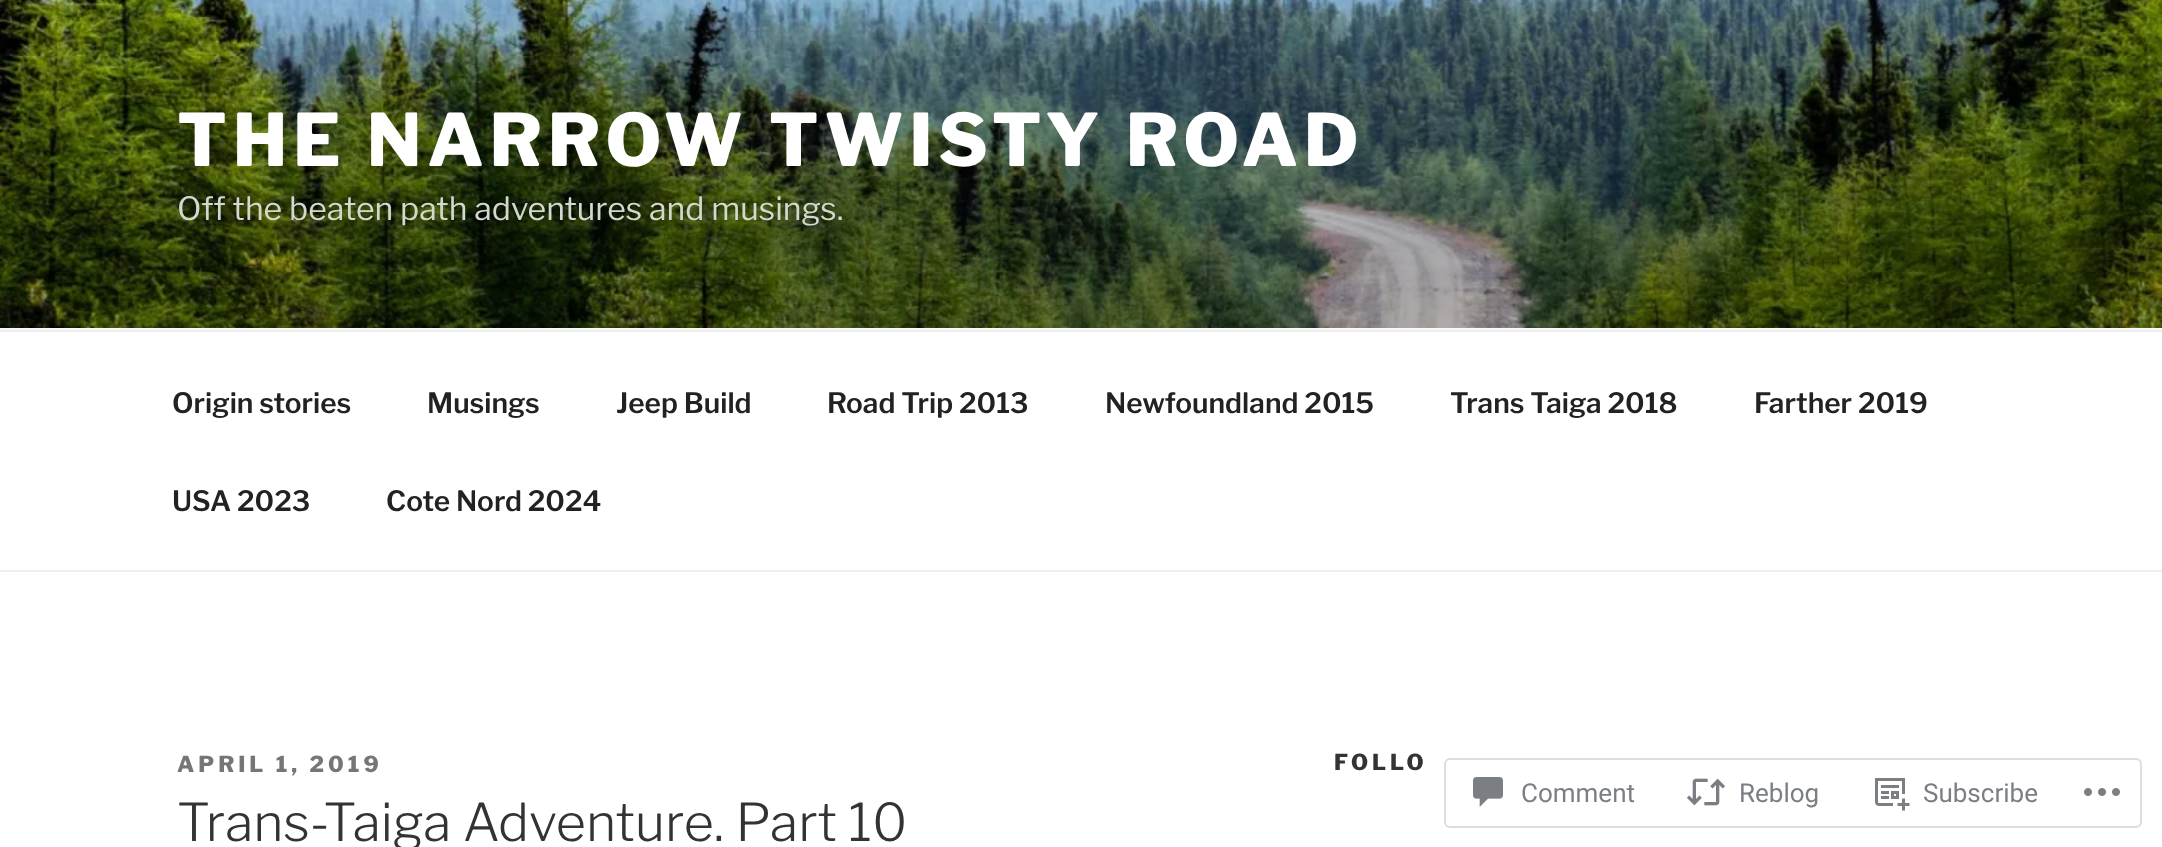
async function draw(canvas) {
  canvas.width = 2162
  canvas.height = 847
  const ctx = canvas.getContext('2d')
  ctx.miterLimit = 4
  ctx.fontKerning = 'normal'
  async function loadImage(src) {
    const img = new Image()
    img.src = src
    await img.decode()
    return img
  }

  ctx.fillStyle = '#fff'
  ctx.fillRect(0, 0, 2162, 847)
  ctx.fillStyle = '#fafafa'
  ctx.fillRect(0, 328, 2162, 2)
  ctx.drawImage(await loadImage('image0.png'), 0, 0, 2162, 328)
  ctx.letterSpacing = '5.75px'
  ctx.font = '100 72px Libre Franklin'
  ctx.fillStyle = '#fff'
  ctx.fillText('THE NARROW TWISTY ROAD', 177, 166)
  ctx.letterSpacing = '0px'
  ctx.font = '100 32px "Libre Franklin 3"'
  ctx.fillStyle = '#d4d7ce'
  ctx.fillText('Off the beaten path adventures and musings.', 177, 220)
  ctx.fillStyle = '#eee'
  ctx.fillRect(0, 330, 2162, 2)
  ctx.fillRect(0, 570, 2162, 2)
  ctx.font = '100 28px "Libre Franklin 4"'
  ctx.fillStyle = '#222'
  ctx.fillText('Origin stories', 172, 413)
  ctx.fillText('Musings', 427, 413)
  ctx.fillText('Jeep Build', 616, 413)
  ctx.fillText('Road Trip 2013', 827, 413)
  ctx.fillText('Newfoundland 2015', 1105, 413)
  ctx.fillText('Trans Taiga 2018', 1450, 413)
  ctx.fillText('Farther 2019', 1754, 413)
  ctx.fillText('USA 2023', 172, 511)
  ctx.fillText('Cote Nord 2024', 386, 511)
  ctx.letterSpacing = '4px'
  ctx.font = '100 22px Libre Franklin'
  ctx.fillStyle = '#767676'
  ctx.fillText('APRIL 1, 2019', 177, 772)
  ctx.letterSpacing = '0px'
  ctx.font = '100 52px "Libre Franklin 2"'
  ctx.fillStyle = '#333'
  ctx.fillText('Trans-Taiga Adventure. Part 10', 177, 841)
  ctx.letterSpacing = '4px'
  ctx.font = '100 22px Libre Franklin'
  ctx.fillText('FOLLO', 1334, 770)
  ctx.beginPath()
  ctx.roundRect(1445, 759, 696, 68, 5)
  ctx.strokeStyle = '#dcdcdefa'
  ctx.lineWidth = 2
  ctx.stroke()
  ctx.drawImage(await loadImage('image1.png'), 1473, 777, 30, 30)
  ctx.letterSpacing = '0px'
  ctx.font = '26px Roboto'
  ctx.fillStyle = '#7b7f85'
  ctx.fillText('Comment', 1521, 802)
  ctx.drawImage(await loadImage('image2.png'), 1686, 778, 40, 28)
  ctx.fillText('Reblog', 1739, 802)
  ctx.drawImage(await loadImage('image3.png'), 1875, 778, 35, 33)
  ctx.fillText('Subscribe', 1923, 802)
  ctx.drawImage(await loadImage('image4.png'), 2084, 788, 36, 8)
}

draw(document.querySelector('canvas'))
